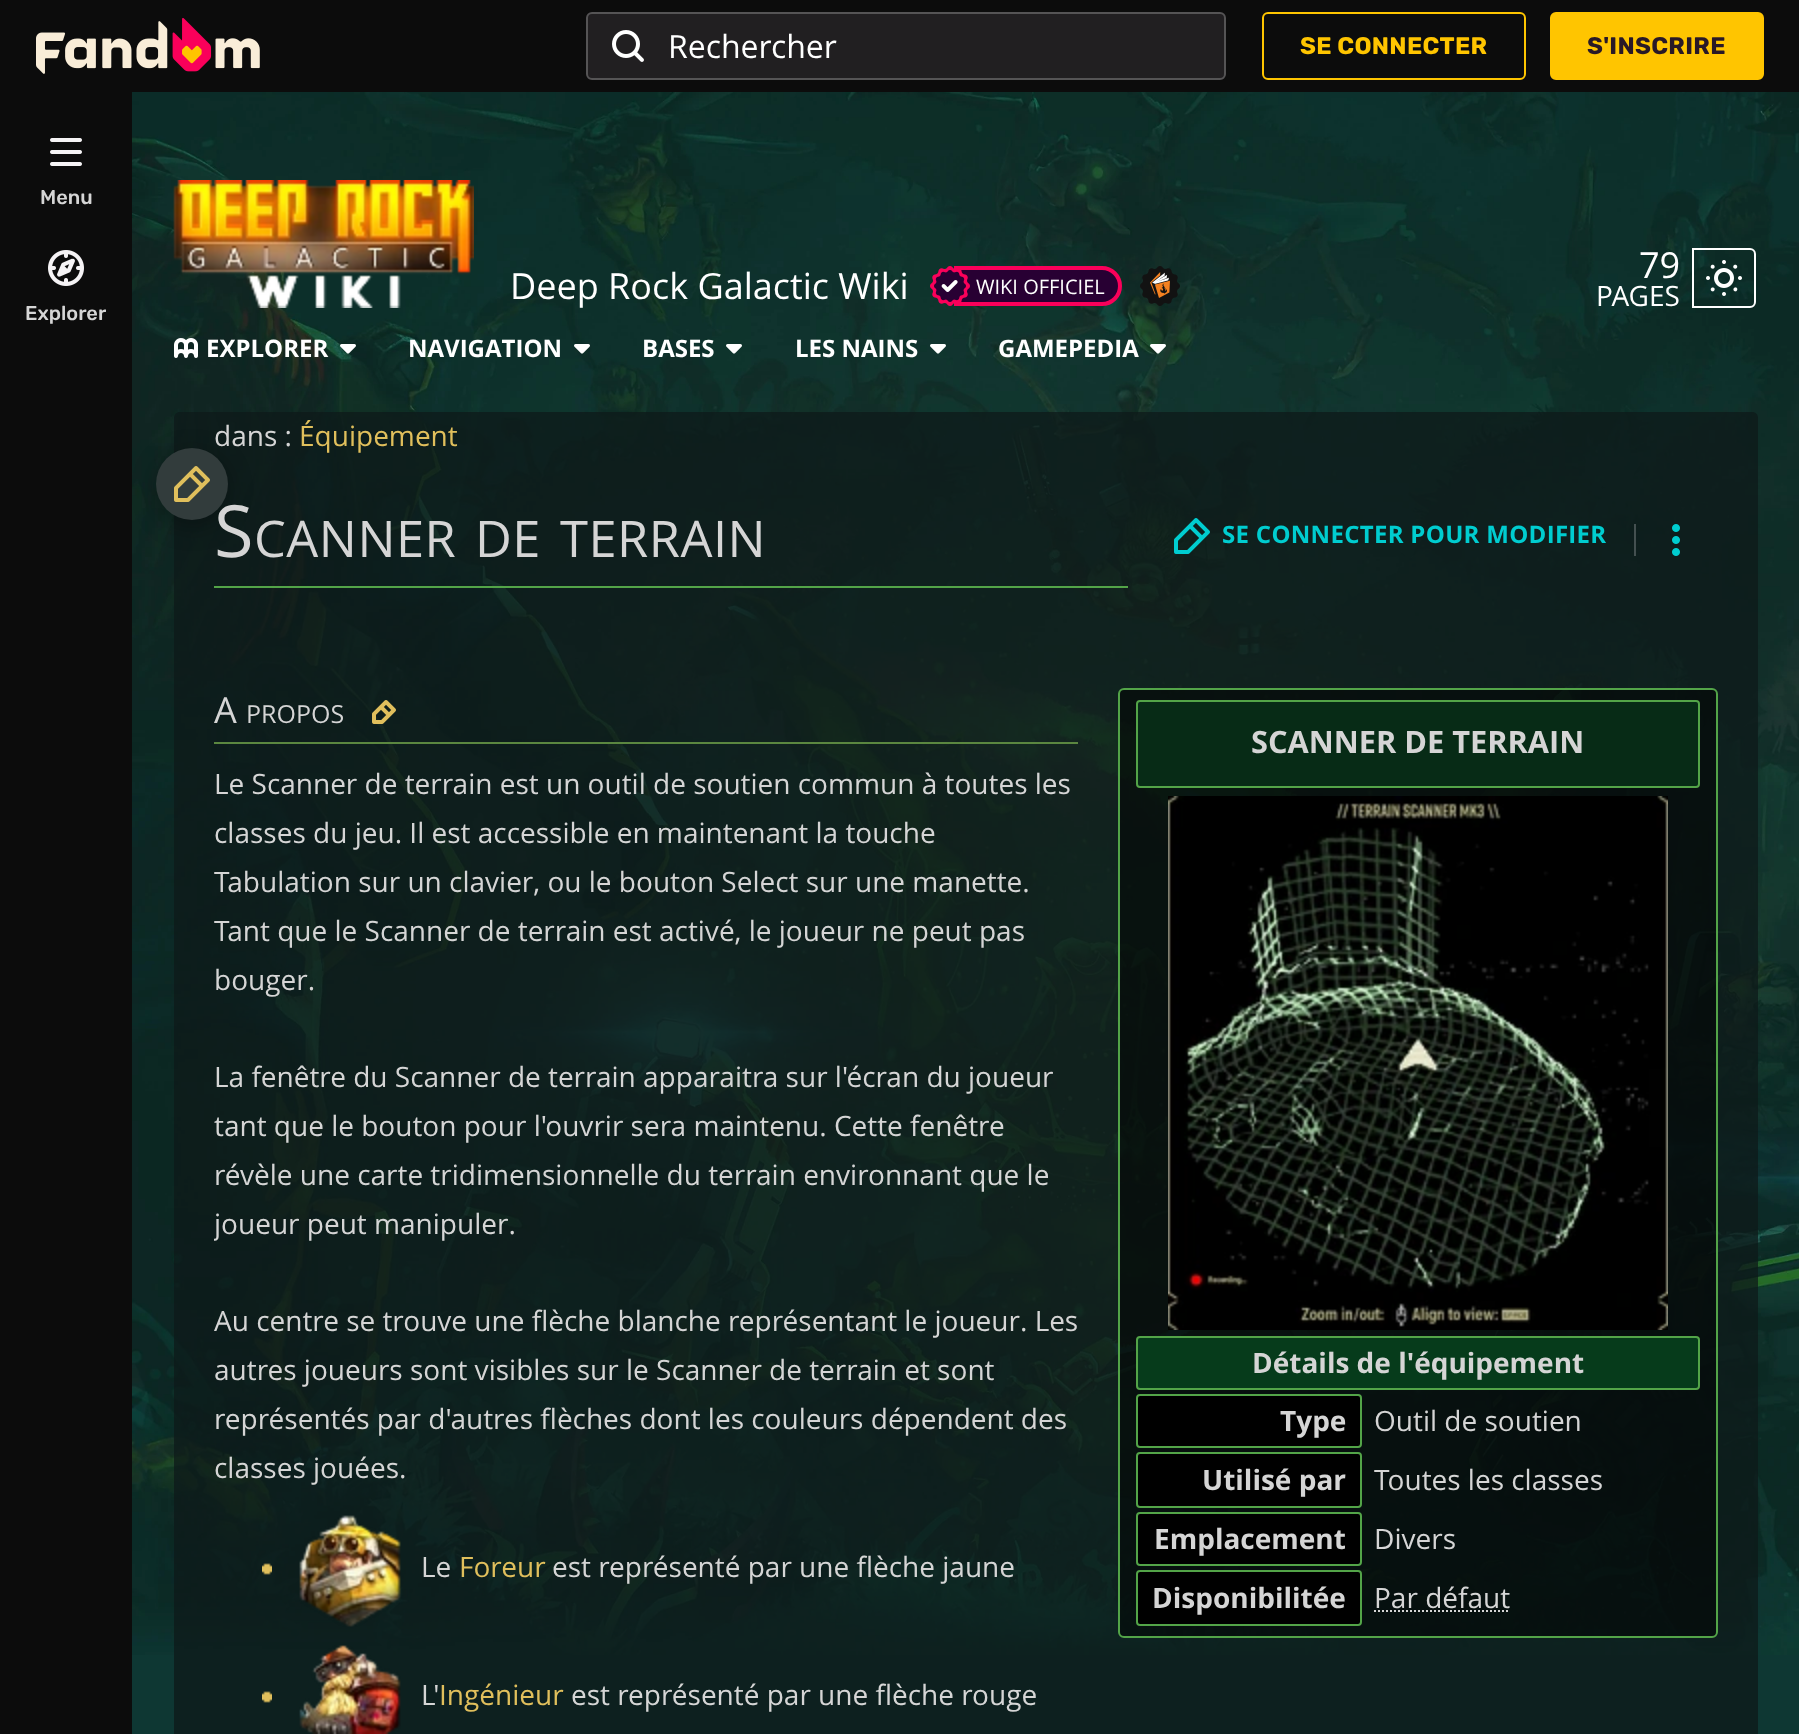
async function draw(canvas) {
  canvas.width = 1799
  canvas.height = 1734
  const ctx = canvas.getContext('2d')
  ctx.miterLimit = 4
  ctx.fontKerning = 'normal'
  async function loadImage(src) {
    const img = new Image()
    img.src = src
    await img.decode()
    return img
  }

  ctx.fillStyle = '#0e3733'
  ctx.fillRect(0, 0, 1799, 1734)
  ctx.fillStyle = '#0c0c0c'
  ctx.fillRect(0, 0, 1799, 92)
  ctx.drawImage(await loadImage('image0.png'), 36, 18, 224, 56)
  ctx.fillStyle = '#211f21'
  ctx.beginPath()
  ctx.roundRect(586, 12, 640, 68, 6)
  ctx.fill()
  ctx.beginPath()
  ctx.roundRect(587, 13, 638, 66, 5)
  ctx.strokeStyle = '#f5f3f540'
  ctx.lineWidth = 2
  ctx.stroke()
  ctx.drawImage(await loadImage('image1.png'), 612, 30, 32, 32)
  ctx.font = '32px Open Sans'
  ctx.fillStyle = '#fff'
  ctx.fillText('Rechercher', 668, 58)
  ctx.beginPath()
  ctx.roundRect(1263, 13, 262, 66, 5)
  ctx.strokeStyle = '#ffc500'
  ctx.stroke()
  ctx.letterSpacing = '0.3px'
  ctx.font = 'bold 24px Rubik'
  ctx.fillStyle = '#ffc500'
  ctx.fillText('SE CONNECTER', 1300, 54)
  ctx.beginPath()
  ctx.roundRect(1551, 13, 212, 66, 5)
  ctx.fill()
  ctx.stroke()
  ctx.fillStyle = '#291927'
  ctx.fillText('S\'INSCRIRE', 1587, 54)
  ctx.drawImage(await loadImage('image4.png'), 132, 92, 1667, 1563)
  ctx.fillStyle = '#0e191abf'
  ctx.beginPath()
  ctx.moveTo(180, 412)
  ctx.lineTo(1752, 412)
  ctx.bezierCurveTo(1755.5, 412, 1758, 414.5, 1758, 418)
  ctx.lineTo(1758, 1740)
  ctx.lineTo(174, 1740)
  ctx.lineTo(174, 418)
  ctx.bezierCurveTo(174, 414.5, 176.5, 412, 180, 412)
  ctx.closePath()
  ctx.fill()
  ctx.fillStyle = '#0000004d'
  ctx.filter = 'blur(12px)'
  ctx.beginPath()
  ctx.roundRect(156, 454, 72, 72, 36)
  ctx.fill()
  ctx.filter = 'none'
  ctx.fillStyle = '#0c0c0c'
  ctx.fillRect(0, 92, 132, 1642)
  ctx.drawImage(await loadImage('image2.png'), 50, 138, 32, 28)
  ctx.letterSpacing = '0px'
  ctx.font = '500 20px Rubik'
  ctx.fillStyle = '#d5d5d5'
  ctx.fillText('Menu', 40, 204)
  ctx.drawImage(await loadImage('image3.png'), 48, 250, 36, 36)
  ctx.save()
  ctx.beginPath()
  ctx.rect(26, 304, 80, 20)
  ctx.clip()
  ctx.fillText('Explorer', 25, 320)
  ctx.restore()
  ctx.drawImage(await loadImage('image5.png'), 173, 180, 301, 128)
  ctx.font = '36px Open Sans'
  ctx.fillStyle = '#fff'
  ctx.fillText('Deep Rock Galactic Wiki', 510, 299)
  ctx.fillStyle = '#280033'
  ctx.beginPath()
  ctx.roundRect(956, 268, 164, 36, [0, 18, 18, 0])
  ctx.fill()
  ctx.strokeStyle = '#fa005a'
  ctx.lineWidth = 4
  ctx.stroke()
  ctx.drawImage(await loadImage('image6.png'), 930, 266, 40, 40)
  ctx.font = '20px Open Sans'
  ctx.fillStyle = '#fff'
  ctx.fillText('WIKI OFFICIEL', 976, 294)
  ctx.drawImage(await loadImage('image7.png'), 1140, 266, 40, 40)
  ctx.font = '36px Open Sans'
  ctx.fillText('79', 1639, 278)
  ctx.font = '28px Open Sans'
  ctx.fillText('PAGES', 1596, 306)
  ctx.beginPath()
  ctx.roundRect(1693, 249, 62, 58, [0, 5, 5, 0])
  ctx.strokeStyle = '#fff'
  ctx.lineWidth = 2
  ctx.stroke()
  ctx.drawImage(await loadImage('image8.png'), 1706, 260, 36, 36)
  ctx.drawImage(await loadImage('image9.png'), 174, 338, 24, 20)
  ctx.font = 'bold 24px Open Sans'
  ctx.fillText('EXPLORER', 206, 357)
  ctx.drawImage(await loadImage('image10.png'), 340, 344, 16, 10)
  ctx.fillText('NAVIGATION', 408, 357)
  ctx.drawImage(await loadImage('image11.png'), 574, 344, 16, 10)
  ctx.fillText('BASES', 642, 357)
  ctx.drawImage(await loadImage('image12.png'), 726, 344, 16, 10)
  ctx.fillText('LES NAINS', 795, 357)
  ctx.drawImage(await loadImage('image13.png'), 930, 344, 16, 10)
  ctx.fillText('GAMEPEDIA', 998, 357)
  ctx.drawImage(await loadImage('image14.png'), 1150, 344, 16, 10)
  ctx.letterSpacing = '0.5px'
  ctx.font = '72px Open Sans'
  ctx.fillStyle = '#d5d5d5'
  ctx.fillText('S', 214, 557)
  ctx.fillStyle = '#323c3c'
  ctx.beginPath()
  ctx.arc(192, 484, 36, 0, 2 * Math.PI)
  ctx.fill()
  ctx.drawImage(await loadImage('image15.png'), 174, 466, 36, 36)
  ctx.letterSpacing = '0px'
  ctx.font = '28px Open Sans'
  ctx.fillStyle = '#d5d5d5'
  ctx.fillText('dans :', 214, 446)
  ctx.fillStyle = '#e0bf5c'
  ctx.fillText('Équipement', 299, 446)
  ctx.fillStyle = '#53a448'
  ctx.fillRect(214, 586, 914, 2)
  ctx.letterSpacing = '0.5px'
  ctx.font = '50.5px Open Sans'
  ctx.fillStyle = '#d5d5d5'
  ctx.fillText('CANNER', 254, 557)
  ctx.fillText('DE', 475, 557)
  ctx.fillText('TERRAIN', 560, 557)
  ctx.drawImage(await loadImage('image16.png'), 1174, 518, 36, 36)
  ctx.letterSpacing = '0.3px'
  ctx.font = 'bold 24px Open Sans'
  ctx.fillStyle = '#00cdd0'
  ctx.fillText('SE CONNECTER POUR MODIFIER', 1222, 543)
  ctx.fillStyle = '#445050'
  ctx.fillRect(1634, 524, 2, 32)
  ctx.drawImage(await loadImage('image17.png'), 1672, 524, 8, 32)
  ctx.fillStyle = '#5b8740'
  ctx.fillRect(214, 742, 864, 2)
  ctx.letterSpacing = '0px'
  ctx.font = '36px Open Sans'
  ctx.fillStyle = '#d5d5d5'
  ctx.fillText('A', 214, 723)
  ctx.font = '25px Open Sans'
  ctx.fillText('PROPOS', 246, 723)
  ctx.drawImage(await loadImage('image18.png'), 372, 700, 24, 24)
  ctx.font = '28px Open Sans'
  ctx.fillText('Le Scanner de terrain est un outil de soutien commun à toutes les', 214, 794)
  ctx.fillText('classes du jeu. Il est accessible en maintenant la touche', 214, 843)
  ctx.fillText('Tabulation sur un clavier, ou le bouton Select sur une manette.', 214, 892)
  ctx.fillText('Tant que le Scanner de terrain est activé, le joueur ne peut pas', 214, 941)
  ctx.fillText('bouger.', 214, 990)
  ctx.fillStyle = '#00000080'
  ctx.beginPath()
  ctx.roundRect(1119, 689, 598, 948, 5)
  ctx.fill()
  ctx.strokeStyle = '#53a448'
  ctx.stroke()
  ctx.fillStyle = '#072b16'
  ctx.beginPath()
  ctx.roundRect(1137, 701, 562, 86, 3)
  ctx.fill()
  ctx.stroke()
  ctx.font = 'bold 30.75px Open Sans'
  ctx.fillStyle = '#d5d5d5'
  ctx.fillText('SCANNER DE TERRAIN', 1251, 753)
  ctx.drawImage(await loadImage('image19.png'), 1168, 796, 500, 534)
  ctx.fillStyle = '#063b1b'
  ctx.beginPath()
  ctx.roundRect(1137, 1337, 562, 52, 3)
  ctx.fill()
  ctx.stroke()
  ctx.font = 'bold 28px Open Sans'
  ctx.fillStyle = '#d5d5d5'
  ctx.fillText('Détails de l\'équipement', 1252, 1373)
  ctx.fillStyle = '#000'
  ctx.beginPath()
  ctx.roundRect(1137, 1395, 224, 52, 3)
  ctx.fill()
  ctx.stroke()
  ctx.fillStyle = '#d5d5d5'
  ctx.fillText('Type', 1280, 1431)
  ctx.font = '28px Open Sans'
  ctx.fillText('Outil de soutien', 1374, 1431)
  ctx.fillStyle = '#000'
  ctx.beginPath()
  ctx.roundRect(1137, 1453, 224, 54, 3)
  ctx.fill()
  ctx.stroke()
  ctx.font = 'bold 28px Open Sans'
  ctx.fillStyle = '#d5d5d5'
  ctx.fillText('Utilisé par', 1202, 1490)
  ctx.font = '28px Open Sans'
  ctx.fillText('Toutes les classes', 1374, 1490)
  ctx.fillStyle = '#000'
  ctx.beginPath()
  ctx.roundRect(1137, 1513, 224, 52, 3)
  ctx.fill()
  ctx.stroke()
  ctx.font = 'bold 28px Open Sans'
  ctx.fillStyle = '#d5d5d5'
  ctx.fillText('Emplacement', 1154, 1549)
  ctx.font = '28px Open Sans'
  ctx.fillText('Divers', 1374, 1549)
  ctx.fillStyle = '#000'
  ctx.beginPath()
  ctx.roundRect(1137, 1571, 224, 54, 3)
  ctx.fill()
  ctx.stroke()
  ctx.font = 'bold 28px Open Sans'
  ctx.fillStyle = '#d5d5d5'
  ctx.fillText('Disponibilitée', 1152, 1608)
  ctx.font = '28px Open Sans'
  ctx.fillText('Par défaut', 1374, 1608)
  ctx.beginPath()
  ctx.moveTo(1374, 1611)
  ctx.lineTo(1510, 1611)
  ctx.strokeStyle = '#d5d5d5'
  ctx.setLineDash([2, 2])
  ctx.stroke()
  ctx.fillText('La fenêtre du Scanner de terrain apparaitra sur l\'écran du joueur', 214, 1087)
  ctx.fillText('tant que le bouton pour l\'ouvrir sera maintenu. Cette fenêtre', 214, 1136)
  ctx.fillText('révèle une carte tridimensionnelle du terrain environnant que le', 214, 1185)
  ctx.save()
  ctx.beginPath()
  ctx.rect(214, 648, 1504, 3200)
  ctx.clip()
  ctx.fillText('joueur peut manipuler.', 214, 1234)
  ctx.restore()
  ctx.fillText('Au centre se trouve une flèche blanche représentant le joueur. Les', 214, 1331)
  ctx.fillText('autres joueurs sont visibles sur le Scanner de terrain et sont', 214, 1380)
  ctx.fillText('représentés par d\'autres flèches dont les couleurs dépendent des', 214, 1429)
  ctx.fillText('classes jouées.', 214, 1478)
  ctx.drawImage(await loadImage('image20.png'), 262, 1563, 10, 12)
  ctx.drawImage(await loadImage('image21.png'), 299, 1515, 102, 112)
  ctx.fillText('Le', 421, 1577)
  ctx.fillStyle = '#e0bf5c'
  ctx.fillText('Foreur', 459, 1577)
  ctx.fillStyle = '#d5d5d5'
  ctx.fillText('est représenté par une flèche jaune', 552, 1577)
  ctx.drawImage(await loadImage('image22.png'), 262, 1691, 10, 12)
  ctx.drawImage(await loadImage('image23.png'), 299, 1645, 102, 89)
  ctx.fillText('L\'', 421, 1705)
  ctx.fillStyle = '#e0bf5c'
  ctx.fillText('Ingénieur', 439, 1705)
  ctx.fillStyle = '#d5d5d5'
  ctx.fillText('est représenté par une flèche rouge', 571, 1705)
}

draw(document.querySelector('canvas'))
